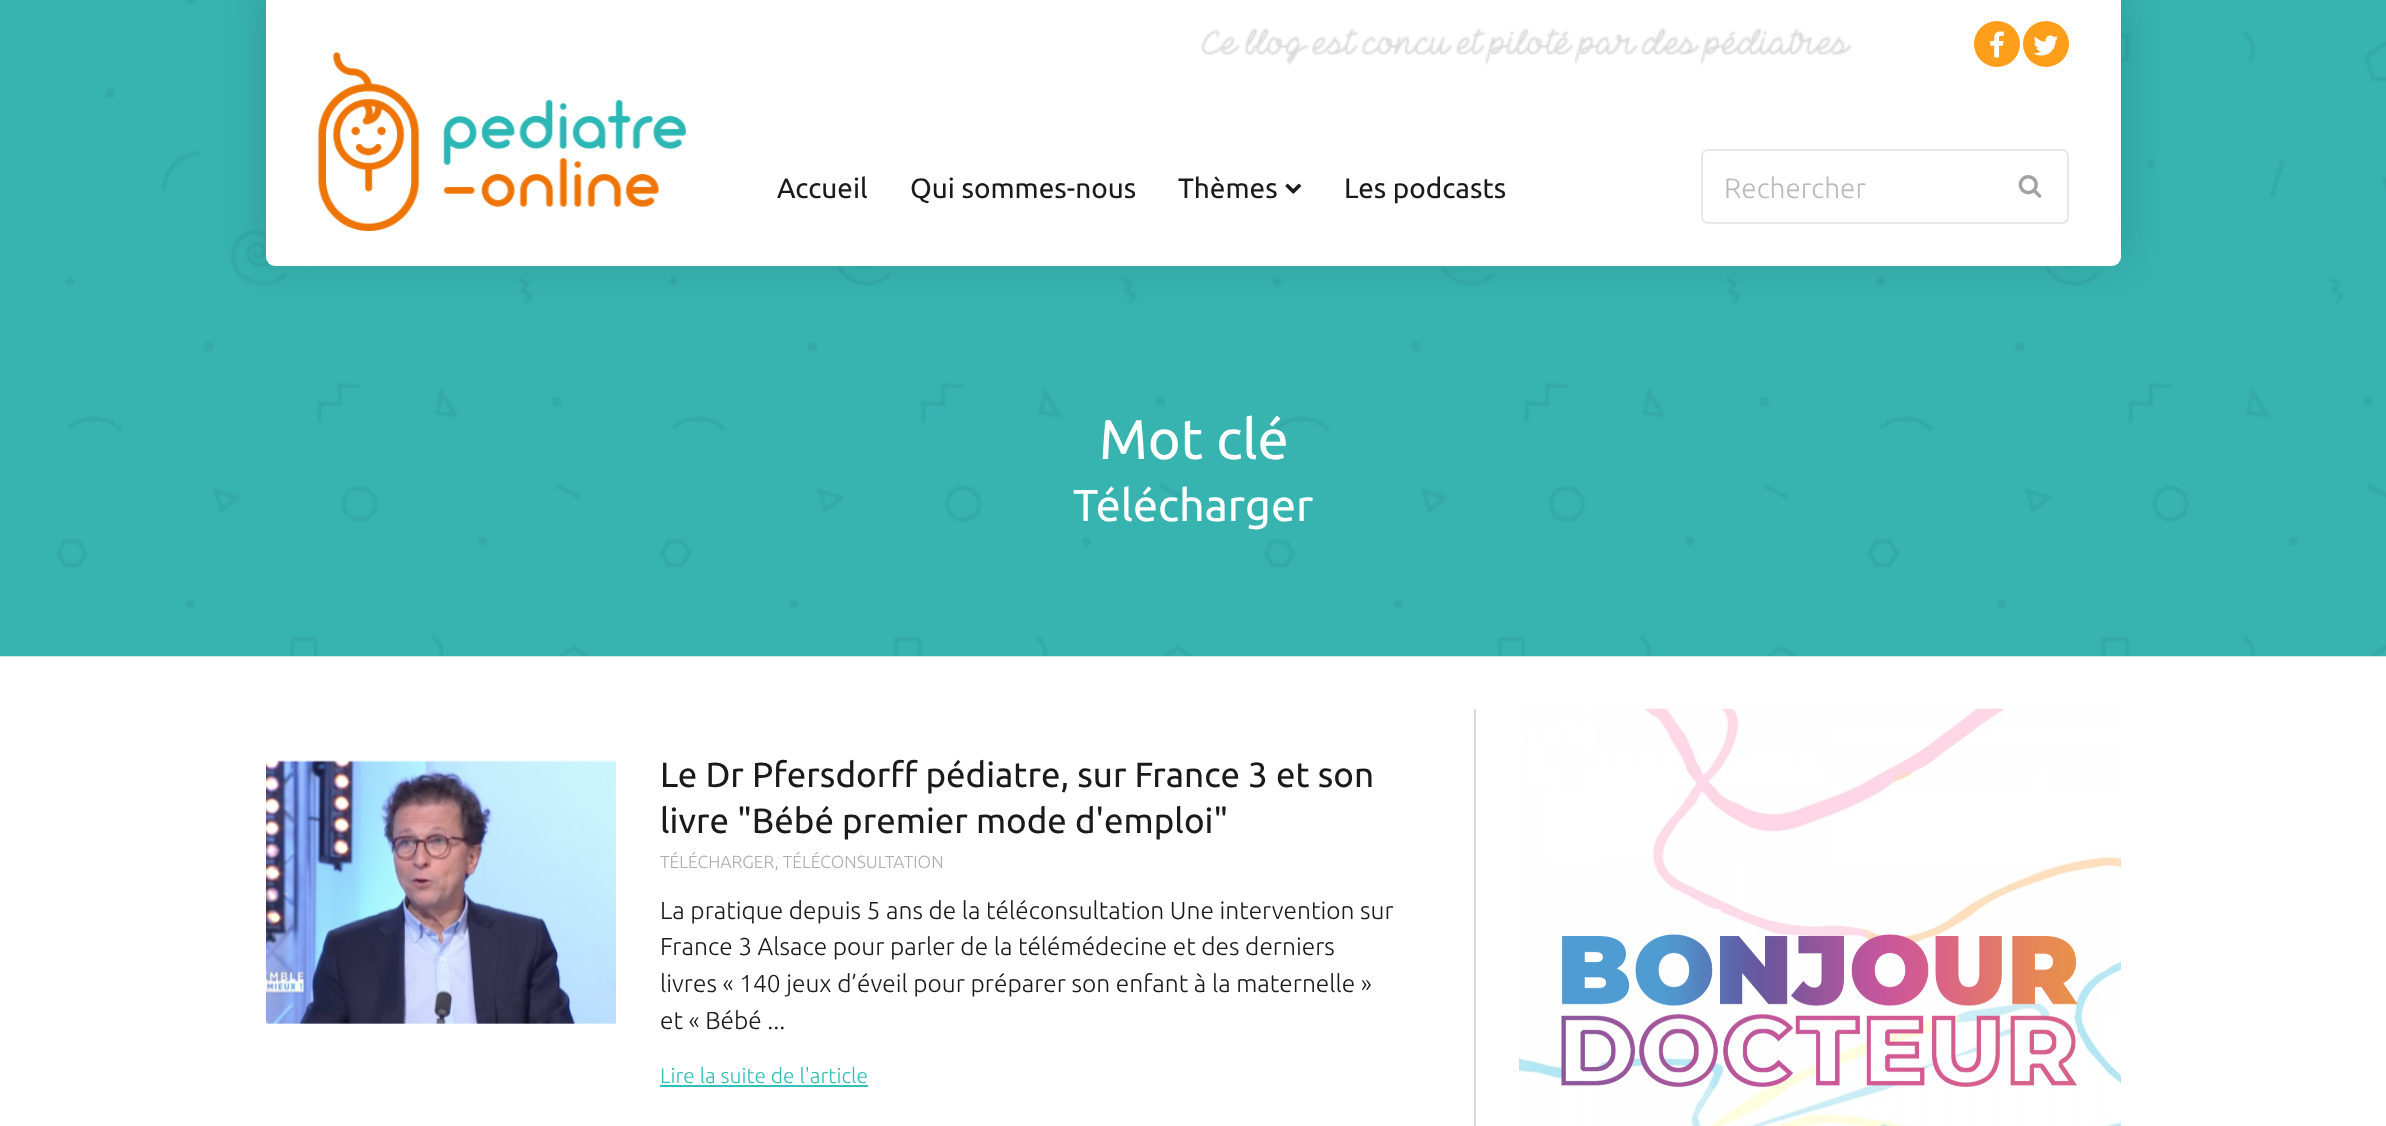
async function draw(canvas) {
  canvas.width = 2386
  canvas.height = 1126
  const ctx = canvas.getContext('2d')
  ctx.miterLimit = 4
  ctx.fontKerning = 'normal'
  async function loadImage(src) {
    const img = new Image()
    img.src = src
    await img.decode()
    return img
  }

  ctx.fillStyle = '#fff'
  ctx.fillRect(0, 0, 2386, 1126)
  ctx.drawImage(await loadImage('image6.png'), 0, 0, 2386, 657)
  ctx.fillStyle = '#00000026'
  ctx.filter = 'blur(22px)'
  ctx.beginPath()
  ctx.roundRect(266, -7, 1855, 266, 9)
  ctx.fill()
  ctx.filter = 'none'
  ctx.fillStyle = '#fff'
  ctx.beginPath()
  ctx.roundRect(266, 0, 1855, 266, [0, 0, 9, 9])
  ctx.fill()
  ctx.drawImage(await loadImage('image0.png'), 1200, 28, 652, 37)
  ctx.fillStyle = '#ff9e1b'
  ctx.beginPath()
  ctx.arc(1997, 44, 23, 0, 2 * Math.PI)
  ctx.fill()
  ctx.drawImage(await loadImage('image1.png'), 1990, 31, 14, 27)
  ctx.beginPath()
  ctx.arc(2046, 44, 23, 0, 2 * Math.PI)
  ctx.fill()
  ctx.drawImage(await loadImage('image2.png'), 2033, 35, 25, 21)
  ctx.drawImage(await loadImage('image3.png'), 318, 52, 368, 179)
  ctx.font = '28px Ubuntu'
  ctx.fillStyle = '#1a1a1a'
  ctx.fillText('Accueil', 777, 198)
  ctx.fillText('Qui sommes-nous', 910, 198)
  ctx.fillText('Thèmes', 1178, 198)
  ctx.drawImage(await loadImage('image4.png'), 1285, 183, 16, 11)
  ctx.fillText('Les podcasts', 1344, 198)
  ctx.beginPath()
  ctx.roundRect(1702, 150, 366, 73, 6)
  ctx.strokeStyle = '#e8e8e8'
  ctx.lineWidth = 2
  ctx.stroke()
  ctx.font = '300 28px Ubuntu'
  ctx.fillStyle = '#bababa'
  ctx.fillText('Rechercher', 1724, 198)
  ctx.drawImage(await loadImage('image5.png'), 2018, 175, 24, 23)
  ctx.font = '56px Ubuntu'
  ctx.fillStyle = '#fff'
  ctx.fillText('Mot clé', 1099, 459)
  ctx.font = '44.75px Ubuntu'
  ctx.fillText('Télécharger', 1073, 521)
  ctx.fillStyle = '#dcdada'
  ctx.fillRect(1474, 709, 2, 417)
  ctx.drawImage(await loadImage('image7.png'), 266, 760, 350, 264)
  ctx.font = '35px Ubuntu'
  ctx.fillStyle = '#1a1a1a'
  ctx.fillText('Le Dr Pfersdorff pédiatre, sur France 3 et son', 660, 787)
  ctx.fillText('livre "Bébé premier mode d\'emploi"', 660, 833)
  ctx.font = '300 17.5px Ubuntu'
  ctx.fillStyle = '#aeaeae'
  ctx.fillText('TÉLÉCHARGER, TÉLÉCONSULTATION', 660, 868)
  ctx.font = '300 24.5px Ubuntu'
  ctx.fillStyle = '#1a1a1a'
  ctx.fillText('La pratique depuis 5 ans de la téléconsultation Une intervention sur', 660, 919)
  ctx.fillText('France 3 Alsace pour parler de la télémédecine et des derniers', 660, 955)
  ctx.fillText('livres « 140 jeux d’éveil pour préparer son enfant à la maternelle »', 660, 992)
  ctx.fillText('et « Bébé ...', 660, 1029)
  ctx.font = '300 21px Ubuntu'
  ctx.fillStyle = '#33beb7'
  ctx.fillText('Lire la suite de l\'article', 660, 1083)
  ctx.fillRect(660, 1085, 208, 2)
  ctx.drawImage(await loadImage('image8.png'), 1519, 708, 602, 418)
}

draw(document.querySelector('canvas'))
